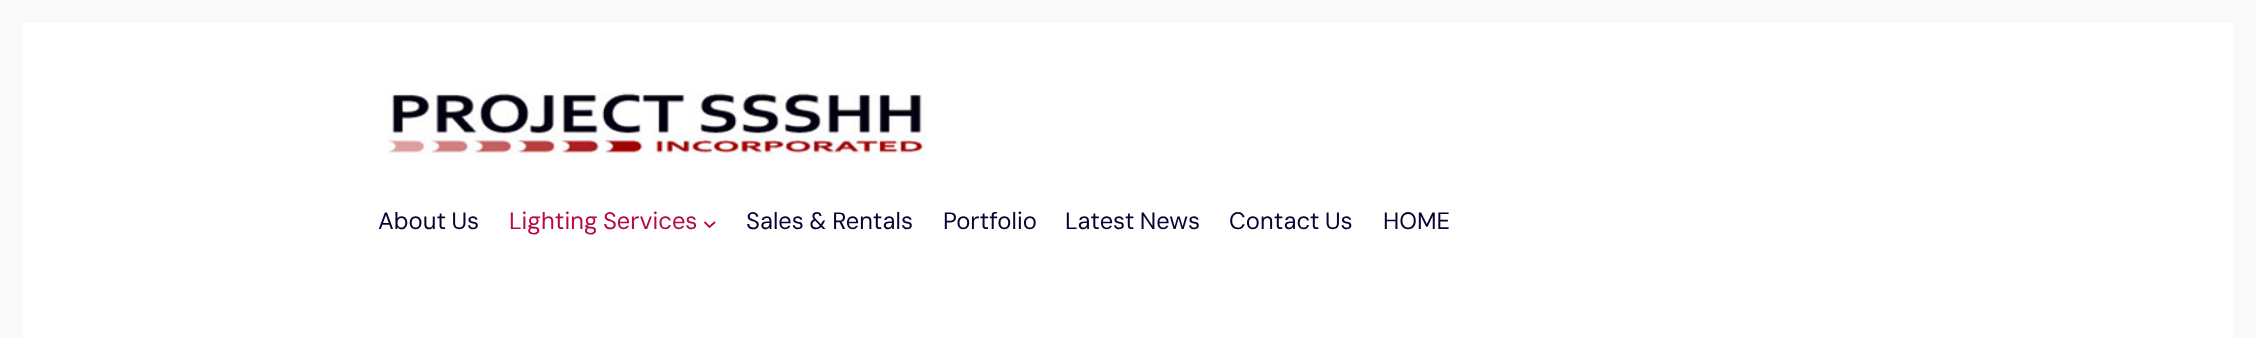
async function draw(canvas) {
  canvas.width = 2256
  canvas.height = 338
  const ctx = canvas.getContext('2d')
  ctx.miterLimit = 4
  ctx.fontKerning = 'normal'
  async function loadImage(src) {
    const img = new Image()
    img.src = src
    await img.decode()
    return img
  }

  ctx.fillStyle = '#fff'
  ctx.fillRect(0, 0, 2256, 338)
  ctx.strokeStyle = '#f9f9fb'
  ctx.lineWidth = 23
  ctx.strokeRect(11.5, 11.5, 2233, 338)
  ctx.drawImage(await loadImage('image0.png'), 387, 93, 540, 62)
  ctx.wordSpacing = '-1px'
  ctx.font = '23.75px DM Sans'
  ctx.fillStyle = '#0b0033'
  ctx.fillText('About Us', 378, 229)
  ctx.fillStyle = '#b50b3e'
  ctx.fillText('Lighting Services', 509, 229)
  ctx.beginPath()
  ctx.moveTo(704.5, 222)
  ctx.lineTo(709.5, 227)
  ctx.lineTo(715, 222)
  ctx.strokeStyle = '#b50b3e'
  ctx.lineWidth = 1.8
  ctx.stroke()
  ctx.fillStyle = '#0b0033'
  ctx.fillText('Sales & Rentals', 746, 229)
  ctx.wordSpacing = '0px'
  ctx.fillText('Portfolio', 943, 229)
  ctx.wordSpacing = '-1px'
  ctx.fillText('Latest News', 1065, 229)
  ctx.fillText('Contact Us', 1229, 229)
  ctx.wordSpacing = '0px'
  ctx.fillText('HOME', 1383, 229)
}

draw(document.querySelector('canvas'))
